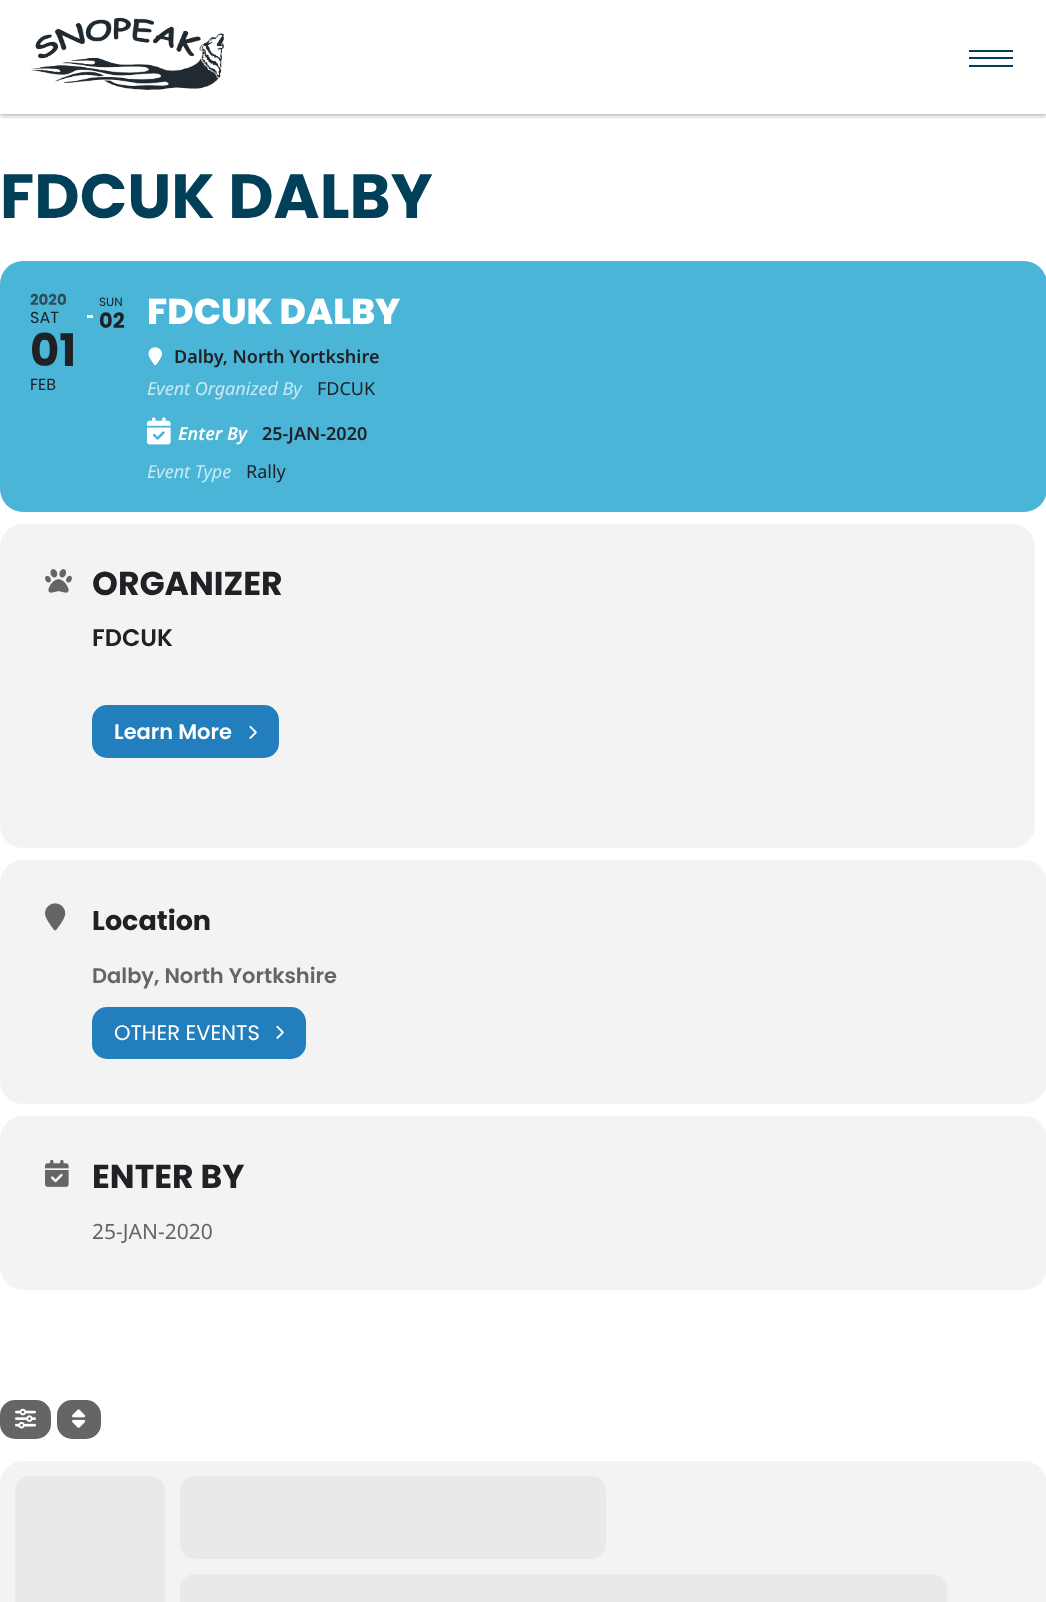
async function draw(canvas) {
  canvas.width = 1046
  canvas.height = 1602
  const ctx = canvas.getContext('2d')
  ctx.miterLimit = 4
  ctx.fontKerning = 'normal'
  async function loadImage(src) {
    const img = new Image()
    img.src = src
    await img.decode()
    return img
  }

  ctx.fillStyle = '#fff'
  ctx.fillRect(0, 0, 1046, 1602)
  ctx.save()
  ctx.beginPath()
  ctx.rect(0, 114, 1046, 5)
  ctx.clip()
  ctx.fillStyle = '#00000080'
  ctx.filter = 'blur(3px)'
  ctx.beginPath()
  ctx.rect(0, 0, 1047, 114)
  ctx.fill()
  ctx.filter = 'none'
  ctx.restore()
  ctx.drawImage(await loadImage('image0.png'), 31, 17, 194, 73)
  ctx.fillStyle = '#024059'
  ctx.fillRect(969, 50, 44, 2)
  ctx.fillRect(969, 57, 44, 2)
  ctx.fillRect(969, 65, 44, 2)
  ctx.font = 'bold 62.5px Poppins'
  ctx.fillText('FDCUK DALBY', 0, 218)
  ctx.fillStyle = '#4bb5d8'
  ctx.beginPath()
  ctx.roundRect(0, 261, 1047, 251, 23)
  ctx.fill()
  ctx.font = 'bold 15px Poppins'
  ctx.fillStyle = '#2d4d5a'
  ctx.fillText('2020', 30, 305)
  ctx.font = '16px Poppins'
  ctx.fillStyle = '#202124'
  ctx.fillText('SAT', 30, 323)
  ctx.font = 'bold 45px Poppins'
  ctx.fillText('01', 30, 366)
  ctx.font = '16px Poppins'
  ctx.fillText('FEB', 30, 390)
  ctx.font = '12px Poppins'
  ctx.fillText('SUN', 99, 306)
  ctx.fillStyle = '#fff'
  ctx.fillRect(87, 315, 6, 3)
  ctx.font = 'bold 21px Poppins'
  ctx.fillStyle = '#202124'
  ctx.fillText('02', 99, 328)
  ctx.font = '800 36px Poppins'
  ctx.fillStyle = '#fff'
  ctx.fillText('FDCUK DALBY', 147, 324)
  ctx.drawImage(await loadImage('image1.png'), 148, 347, 14, 19)
  ctx.font = '600 18px Noto Sans'
  ctx.fillStyle = '#202124'
  ctx.fillText('Dalby, North Yortkshire', 174, 363)
  ctx.font = 'italic 18px Noto Sans'
  ctx.fillStyle = '#c9e9f3'
  ctx.fillText('Event Organized By', 147, 395)
  ctx.font = '18px Noto Sans'
  ctx.fillStyle = '#202124'
  ctx.fillText('FDCUK', 317, 395)
  ctx.drawImage(await loadImage('image2.png'), 147, 417, 24, 28)
  ctx.font = 'italic 600 18px Noto Sans'
  ctx.fillStyle = '#fff'
  ctx.fillText('Enter By', 178, 440)
  ctx.font = '600 18px Noto Sans'
  ctx.fillStyle = '#202124'
  ctx.fillText('25-JAN-2020', 262, 440)
  ctx.font = 'italic 18px Noto Sans'
  ctx.fillStyle = '#c9e9f3'
  ctx.fillText('Event Type', 147, 478)
  ctx.font = '18px Noto Sans'
  ctx.fillStyle = '#202124'
  ctx.fillText('Rally', 246, 478)
  ctx.fillStyle = '#f3f3f3'
  ctx.beginPath()
  ctx.roundRect(0, 524, 1035, 324, 23)
  ctx.fill()
  ctx.drawImage(await loadImage('image3.png'), 45, 569, 27, 24)
  ctx.font = 'bold 33px Poppins'
  ctx.fillStyle = '#202124'
  ctx.fillText('ORGANIZER', 92, 595)
  ctx.font = '600 24px Poppins'
  ctx.fillText('FDCUK', 92, 646)
  ctx.fillStyle = '#237ebd'
  ctx.beginPath()
  ctx.roundRect(92, 705, 187, 53, 15)
  ctx.fill()
  ctx.font = '600 21px Poppins'
  ctx.fillStyle = '#fff'
  ctx.fillText('Learn More', 114, 739)
  ctx.drawImage(await loadImage('image4.png'), 249, 725, 8, 14)
  ctx.fillStyle = '#f3f3f3'
  ctx.beginPath()
  ctx.roundRect(0, 860, 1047, 244, 23)
  ctx.fill()
  ctx.drawImage(await loadImage('image5.png'), 45, 903, 21, 28)
  ctx.font = 'bold 27px Poppins'
  ctx.fillStyle = '#202124'
  ctx.fillText('Location', 92, 930)
  ctx.font = '600 21px Poppins'
  ctx.fillStyle = '#656565'
  ctx.fillText('Dalby, North Yortkshire', 92, 983)
  ctx.fillStyle = '#237ebd'
  ctx.beginPath()
  ctx.roundRect(92, 1007, 214, 52, 15)
  ctx.fill()
  ctx.font = '21px Poppins'
  ctx.fillStyle = '#fff'
  ctx.fillText('OTHER EVENTS', 114, 1040)
  ctx.drawImage(await loadImage('image4.png'), 276, 1025, 8, 14)
  ctx.fillStyle = '#f3f3f3'
  ctx.beginPath()
  ctx.roundRect(0, 1116, 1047, 174, 23)
  ctx.fill()
  ctx.drawImage(await loadImage('image6.png'), 45, 1159, 24, 28)
  ctx.font = 'bold 33px Poppins'
  ctx.fillStyle = '#202124'
  ctx.fillText('ENTER BY', 92, 1188)
  ctx.font = '21px Noto Sans'
  ctx.fillStyle = '#656565'
  ctx.fillText('25-JAN-2020', 92, 1239)
  ctx.beginPath()
  ctx.roundRect(0, 1400, 51, 39, 15)
  ctx.fill()
  ctx.drawImage(await loadImage('image7.png'), 15, 1408, 21, 21)
  ctx.beginPath()
  ctx.roundRect(57, 1400, 44, 39, 15)
  ctx.fill()
  ctx.drawImage(await loadImage('image8.png'), 72, 1409, 14, 19)
  ctx.fillStyle = '#f3f3f3'
  ctx.beginPath()
  ctx.roundRect(0, 1461, 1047, 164, 23)
  ctx.fill()
  ctx.fillStyle = '#e9e9e9'
  ctx.beginPath()
  ctx.roundRect(15, 1476, 150, 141, 15)
  ctx.fill()
  ctx.beginPath()
  ctx.roundRect(180, 1476, 426, 83, 15)
  ctx.fill()
  ctx.beginPath()
  ctx.roundRect(180, 1574, 767, 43, 15)
  ctx.fill()
}

draw(document.querySelector('canvas'))
